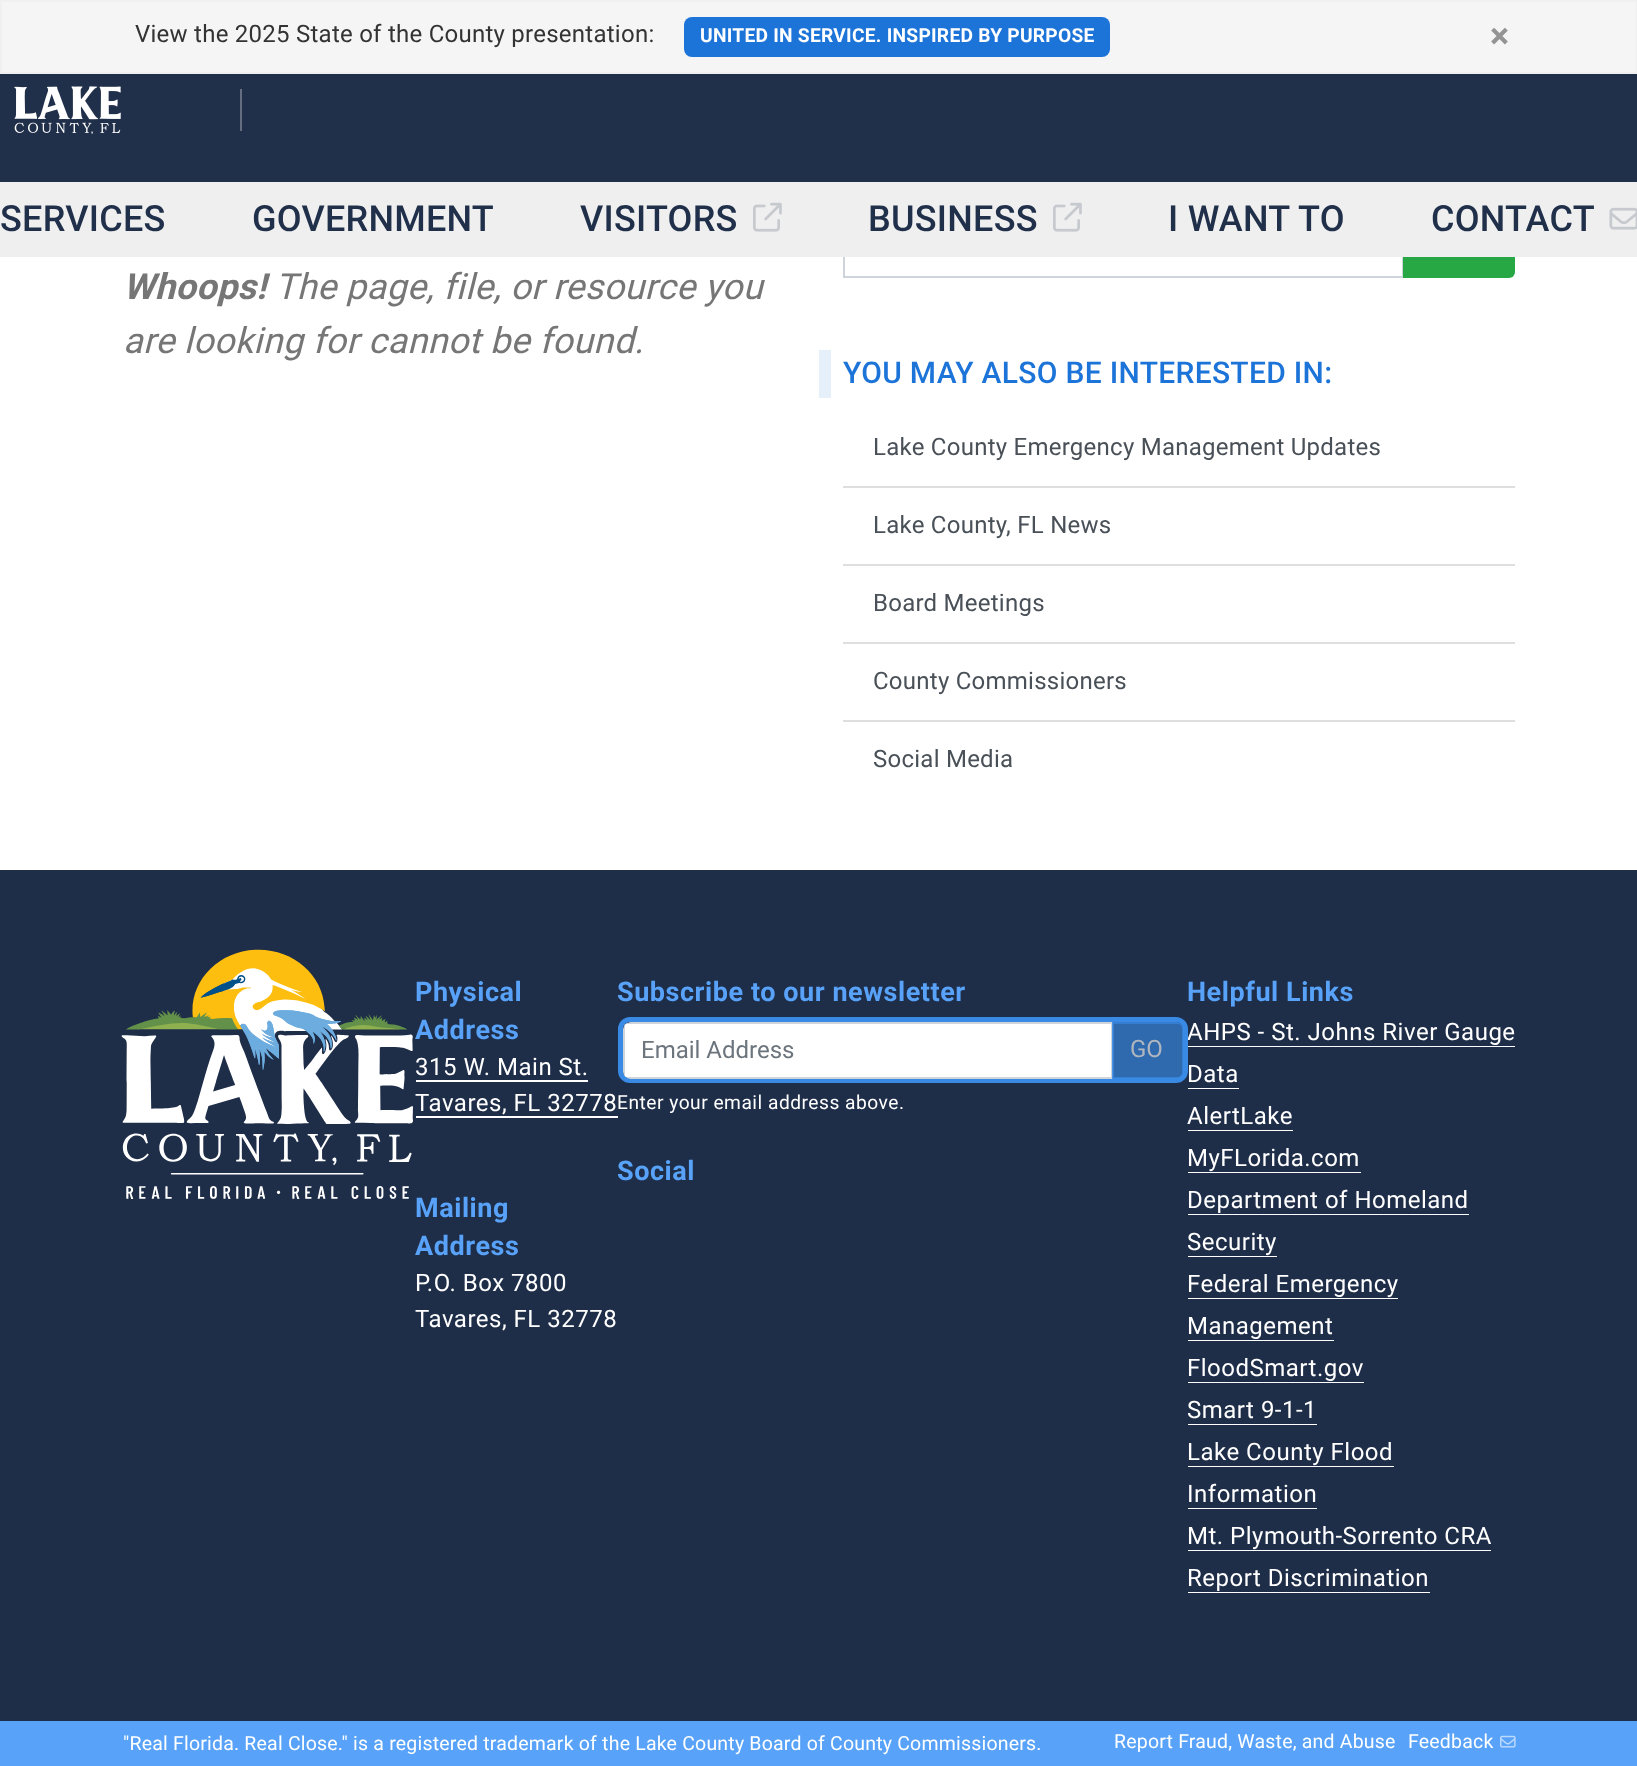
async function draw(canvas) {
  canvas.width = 1637
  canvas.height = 1766
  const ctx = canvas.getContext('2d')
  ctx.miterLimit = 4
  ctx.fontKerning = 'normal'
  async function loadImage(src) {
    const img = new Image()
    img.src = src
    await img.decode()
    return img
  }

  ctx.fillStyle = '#fff'
  ctx.fillRect(0, 0, 1637, 1766)
  ctx.fillStyle = '#f5f5f5'
  ctx.beginPath()
  ctx.rect(1, 1, 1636, 72)
  ctx.fill()
  ctx.strokeStyle = '#f0f0f0'
  ctx.lineWidth = 2
  ctx.stroke()
  ctx.letterSpacing = '0.25px'
  ctx.font = '24px Roboto'
  ctx.fillStyle = '#333'
  ctx.fillText('View the 2025 State of the County presentation:', 135, 42)
  ctx.fillStyle = '#1c74d9'
  ctx.beginPath()
  ctx.roundRect(684, 17, 426, 40, 8)
  ctx.fill()
  ctx.font = 'bold 19.2px Roboto'
  ctx.fillStyle = '#fff'
  ctx.fillText('UNITED IN SERVICE. INSPIRED BY PURPOSE', 700, 42)
  ctx.letterSpacing = '0px'
  ctx.font = 'bold 36px Roboto'
  ctx.fillStyle = '#949494'
  ctx.fillText('×', 1490, 48)
  ctx.fillStyle = '#21304a'
  ctx.fillRect(0, 74, 1637, 108)
  ctx.drawImage(await loadImage('image0.png'), 14, 86, 107, 49)
  ctx.fillStyle = '#646e80'
  ctx.fillRect(240, 89, 2, 42)
  ctx.strokeStyle = '#ced4da'
  ctx.strokeRect(844, 222, 559, 55)
  ctx.fillStyle = '#28a745'
  ctx.beginPath()
  ctx.roundRect(1403, 221, 112, 57, [0, 6, 6, 0])
  ctx.fill()
  ctx.fillStyle = '#efefef'
  ctx.fillRect(0, 182, 1637, 75)
  ctx.letterSpacing = '0.25px'
  ctx.font = '500 36px Roboto'
  ctx.fillStyle = '#21304a'
  ctx.fillText('SERVICES', 0, 231)
  ctx.fillText('GOVERNMENT', 252, 231)
  ctx.fillText('VISITORS', 580, 231)
  ctx.drawImage(await loadImage('image1.png'), 753, 202, 29, 30)
  ctx.fillText('BUSINESS', 868, 231)
  ctx.drawImage(await loadImage('image1.png'), 1053, 202, 29, 30)
  ctx.fillText('I WANT TO', 1168, 231)
  ctx.fillText('CONTACT', 1431, 231)
  ctx.drawImage(await loadImage('image2.png'), 1609, 207, 28, 23)
  ctx.letterSpacing = '0.35px'
  ctx.font = 'italic bold 36px Roboto'
  ctx.fillStyle = '#767676'
  ctx.fillText('Whoops!', 123, 299)
  ctx.font = 'italic 36px Roboto'
  ctx.fillText('The page, file, or resource you', 275, 299)
  ctx.fillText('are looking for cannot be found.', 123, 353)
  ctx.fillStyle = '#e6f0fb'
  ctx.fillRect(819, 350, 12, 48)
  ctx.letterSpacing = '0.3px'
  ctx.font = '500 30px Roboto'
  ctx.fillStyle = '#1c74d9'
  ctx.fillText('YOU MAY ALSO BE INTERESTED IN:', 843, 383)
  ctx.fillStyle = '#dfdfdf'
  ctx.fillRect(843, 486, 672, 2)
  ctx.letterSpacing = '0.25px'
  ctx.font = '24px Roboto'
  ctx.fillStyle = '#495057'
  ctx.fillText('Lake County Emergency Management Updates', 873, 455)
  ctx.fillStyle = '#dfdfdf'
  ctx.fillRect(843, 564, 672, 2)
  ctx.fillStyle = '#495057'
  ctx.fillText('Lake County, FL News', 873, 533)
  ctx.fillStyle = '#dfdfdf'
  ctx.fillRect(843, 642, 672, 2)
  ctx.fillStyle = '#495057'
  ctx.fillText('Board Meetings', 873, 611)
  ctx.fillStyle = '#dfdfdf'
  ctx.fillRect(843, 720, 672, 2)
  ctx.fillStyle = '#495057'
  ctx.fillText('County Commissioners', 873, 689)
  ctx.fillText('Social Media', 873, 767)
  ctx.fillStyle = '#1e2d48'
  ctx.fillRect(0, 870, 1637, 851)
  ctx.drawImage(await loadImage('image3.png'), 121, 949, 292, 250)
  ctx.letterSpacing = '0.55px'
  ctx.font = 'bold 27px Roboto'
  ctx.fillStyle = '#58a3f9'
  ctx.fillText('Physical', 415, 1001)
  ctx.fillText('Address', 415, 1039)
  ctx.letterSpacing = '0.5px'
  ctx.font = '24px Roboto'
  ctx.fillStyle = '#fff'
  ctx.fillText('315 W. Main St.', 415, 1075)
  ctx.fillRect(416, 1080, 172, 2)
  ctx.fillText('Tavares, FL 32778', 415, 1111)
  ctx.fillRect(416, 1116, 202, 2)
  ctx.letterSpacing = '0.55px'
  ctx.font = 'bold 27px Roboto'
  ctx.fillStyle = '#58a3f9'
  ctx.fillText('Mailing', 415, 1217)
  ctx.fillText('Address', 415, 1255)
  ctx.letterSpacing = '0.5px'
  ctx.font = '24px Roboto'
  ctx.fillStyle = '#fff'
  ctx.fillText('P.O. Box 7800', 415, 1291)
  ctx.fillText('Tavares, FL 32778', 415, 1327)
  ctx.letterSpacing = '0.55px'
  ctx.font = 'bold 27px Roboto'
  ctx.fillStyle = '#58a3f9'
  ctx.fillText('Subscribe to our newsletter', 617, 1001)
  ctx.letterSpacing = '0.5px'
  ctx.font = '24px Roboto'
  ctx.fillStyle = '#fff'
  ctx.fillText('AHPS - St. Johns River Gauge', 1187, 1040)
  ctx.beginPath()
  ctx.roundRect(620.5, 1019.5, 565, 61, 9.5)
  ctx.strokeStyle = '#398ae5'
  ctx.lineWidth = 5
  ctx.stroke()
  ctx.save()
  ctx.beginPath()
  ctx.roundRect(623, 1022, 561, 57, 8)
  ctx.clip()
  ctx.fillRect(624, 1023, 487, 54)
  ctx.restore()
  ctx.fillStyle = '#ced4da'
  ctx.beginPath()
  ctx.moveTo(623, 1030)
  ctx.lineTo(623, 1071)
  ctx.bezierCurveTo(623, 1073, 624, 1075, 625, 1076)
  ctx.lineTo(625, 1025)
  ctx.bezierCurveTo(624, 1026, 623, 1028, 623, 1030)
  ctx.closePath()
  ctx.moveTo(631, 1022)
  ctx.bezierCurveTo(629, 1022, 627, 1023, 626, 1024)
  ctx.lineTo(1111, 1024)
  ctx.lineTo(1111, 1077)
  ctx.lineTo(626, 1077)
  ctx.bezierCurveTo(627, 1078, 629, 1079, 631, 1079)
  ctx.lineTo(1113, 1079)
  ctx.lineTo(1113, 1022)
  ctx.closePath()
  ctx.fill('evenodd')
  ctx.letterSpacing = '0px'
  ctx.fillStyle = '#6c757d'
  ctx.fillText('Email Address', 641, 1058)
  ctx.fillStyle = '#398ae5a6'
  ctx.beginPath()
  ctx.roundRect(1112, 1022, 72, 57, [0, 8, 8, 0])
  ctx.fill()
  ctx.beginPath()
  ctx.moveTo(1112, 1022)
  ctx.lineTo(1112, 1079)
  ctx.lineTo(1176, 1079)
  ctx.bezierCurveTo(1180, 1079, 1184, 1075, 1184, 1071)
  ctx.lineTo(1184, 1030)
  ctx.bezierCurveTo(1184, 1026, 1180, 1022, 1176, 1022)
  ctx.closePath()
  ctx.moveTo(1114, 1024)
  ctx.lineTo(1114, 1077)
  ctx.lineTo(1178, 1077)
  ctx.bezierCurveTo(1180, 1077, 1182, 1075, 1182, 1073)
  ctx.lineTo(1182, 1028)
  ctx.bezierCurveTo(1182, 1026, 1180, 1024, 1178, 1024)
  ctx.closePath()
  ctx.fill('evenodd')
  ctx.fillStyle = '#b0b6bf'
  ctx.fillText('GO', 1130, 1057)
  ctx.letterSpacing = '0.5px'
  ctx.font = '19.2px Roboto'
  ctx.fillStyle = '#fff'
  ctx.fillText('Enter your email address above.', 617, 1109)
  ctx.letterSpacing = '0.55px'
  ctx.font = 'bold 27px Roboto'
  ctx.fillStyle = '#58a3f9'
  ctx.fillText('Social', 617, 1180)
  ctx.fillText('Helpful Links', 1187, 1001)
  ctx.fillStyle = '#fff'
  ctx.fillRect(1188, 1046, 327, 1)
  ctx.letterSpacing = '0.5px'
  ctx.font = '24px Roboto'
  ctx.fillText('Data', 1187, 1082)
  ctx.fillRect(1188, 1088, 51, 1)
  ctx.fillText('AlertLake', 1187, 1124)
  ctx.fillRect(1188, 1130, 105, 1)
  ctx.fillText('MyFLorida.com', 1187, 1166)
  ctx.fillRect(1188, 1172, 173, 1)
  ctx.fillText('Department of Homeland', 1187, 1208)
  ctx.fillRect(1188, 1214, 281, 1)
  ctx.fillText('Security', 1187, 1250)
  ctx.fillRect(1188, 1256, 89, 1)
  ctx.fillText('Federal Emergency', 1187, 1292)
  ctx.fillRect(1188, 1298, 210, 1)
  ctx.fillText('Management', 1187, 1334)
  ctx.fillRect(1188, 1340, 146, 1)
  ctx.fillText('FloodSmart.gov', 1187, 1376)
  ctx.fillRect(1188, 1382, 176, 1)
  ctx.fillText('Smart 9-1-1', 1187, 1418)
  ctx.fillRect(1188, 1424, 129, 1)
  ctx.fillText('Lake County Flood', 1187, 1460)
  ctx.fillRect(1188, 1466, 206, 1)
  ctx.fillText('Information', 1187, 1502)
  ctx.fillRect(1188, 1508, 129, 1)
  ctx.fillText('Mt. Plymouth-Sorrento CRA', 1187, 1544)
  ctx.fillRect(1188, 1550, 303, 1)
  ctx.fillText('Report Discrimination', 1187, 1586)
  ctx.fillRect(1188, 1592, 242, 1)
  ctx.fillStyle = '#58a3f9'
  ctx.fillRect(0, 1721, 1637, 45)
  ctx.letterSpacing = '0.2px'
  ctx.font = '19.5px Roboto'
  ctx.fillStyle = '#fff'
  ctx.fillText('"Real Florida. Real Close." is a registered trademark of the Lake County Board of County Commissioners.', 123, 1750)
  ctx.fillText('Report Fraud, Waste, and Abuse', 1114, 1748)
  ctx.fillText('Feedback', 1408, 1748)
  ctx.drawImage(await loadImage('image4.png'), 1500, 1735, 16, 13)
}

draw(document.querySelector('canvas'))
